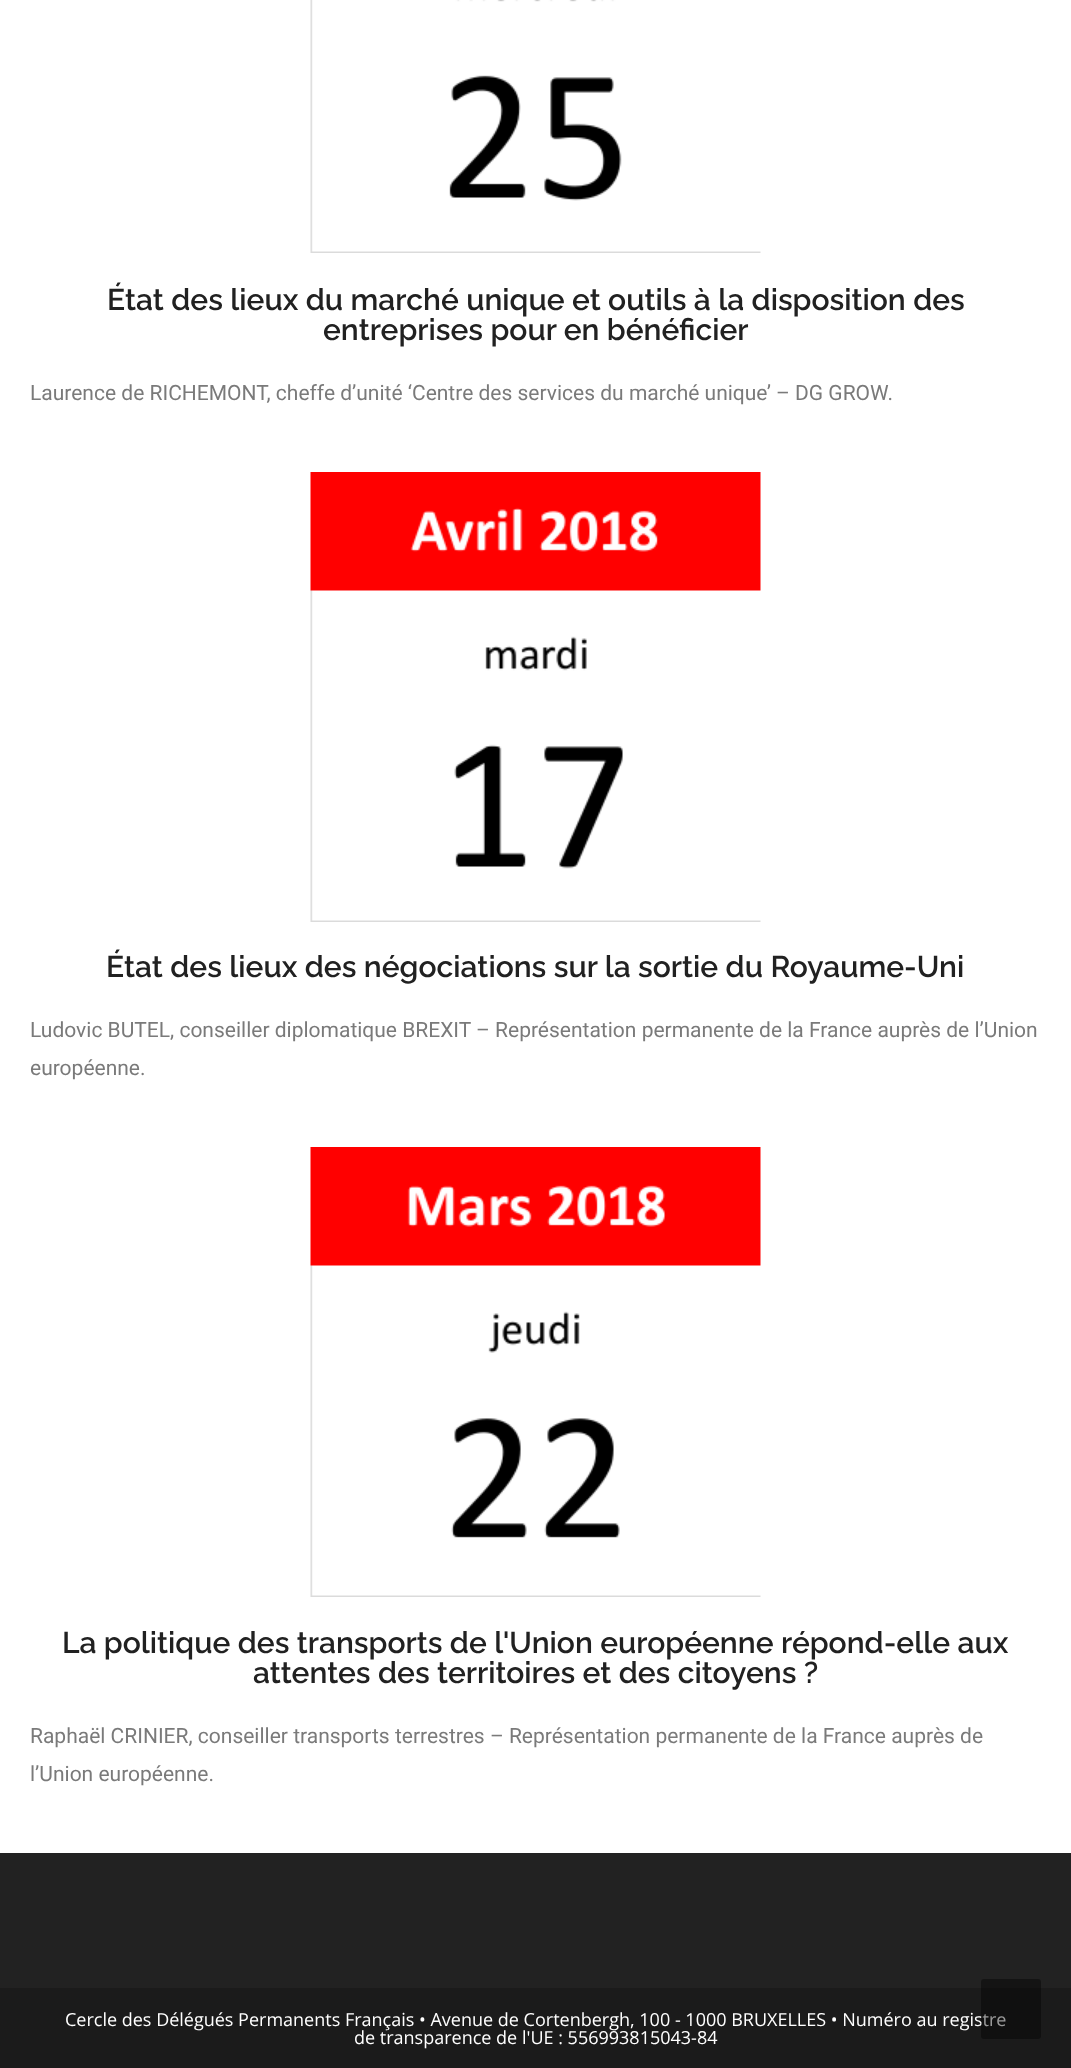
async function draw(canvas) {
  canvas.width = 1071
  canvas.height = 2068
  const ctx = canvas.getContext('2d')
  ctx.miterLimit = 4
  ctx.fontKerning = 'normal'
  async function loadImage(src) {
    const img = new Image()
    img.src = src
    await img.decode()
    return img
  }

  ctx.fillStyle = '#fff'
  ctx.fillRect(0, 0, 1071, 2068)
  ctx.drawImage(await loadImage('image0.png'), 310, 0, 451, 253)
  ctx.font = '600 30px Raleway'
  ctx.fillStyle = '#212121'
  ctx.fillText('État des lieux du marché unique et outils à la disposition des', 107, 310)
  ctx.fillText('entreprises pour en bénéficier', 323, 340)
  ctx.font = '21px Roboto'
  ctx.fillStyle = '#7a7a7a'
  ctx.fillText('Laurence de RICHEMONT, cheffe d’unité ‘Centre des services du marché unique’ – DG GROW.', 30, 400)
  ctx.drawImage(await loadImage('image1.png'), 310, 472, 451, 450)
  ctx.font = '600 30px Raleway'
  ctx.fillStyle = '#212121'
  ctx.fillText('État des lieux des négociations sur la sortie du Royaume-Uni', 106, 977)
  ctx.font = '21px Roboto'
  ctx.fillStyle = '#7a7a7a'
  ctx.fillText('Ludovic BUTEL, conseiller diplomatique BREXIT – Représentation permanente de la France auprès de l’Union', 30, 1037)
  ctx.fillText('européenne.', 30, 1075)
  ctx.drawImage(await loadImage('image2.png'), 310, 1147, 451, 450)
  ctx.font = '600 30px Raleway'
  ctx.fillStyle = '#212121'
  ctx.fillText('La politique des transports de l\'Union européenne répond-elle aux', 62, 1653)
  ctx.fillText('attentes des territoires et des citoyens ?', 253, 1683)
  ctx.font = '21px Roboto'
  ctx.fillStyle = '#7a7a7a'
  ctx.fillText('Raphaël CRINIER, conseiller transports terrestres – Représentation permanente de la France auprès de', 30, 1743)
  ctx.fillText('l’Union européenne.', 30, 1781)
  ctx.fillStyle = '#222'
  ctx.fillRect(0, 1853, 1071, 135)
  ctx.fillStyle = '#1b1b1b'
  ctx.fillRect(0, 1988, 1071, 80)
  ctx.font = '18px Open Sans'
  ctx.fillStyle = '#fff'
  ctx.fillText('Cercle des Délégués Permanents Français • Avenue de Cortenbergh, 100 - 1000 BRUXELLES • Numéro au registre', 65, 2026)
  ctx.fillText('de transparence de l\'UE : 556993815043-84', 354, 2044)
  ctx.fillStyle = '#00000066'
  ctx.beginPath()
  ctx.roundRect(981, 1979, 60, 60, 3)
  ctx.fill()
}

draw(document.querySelector('canvas'))
